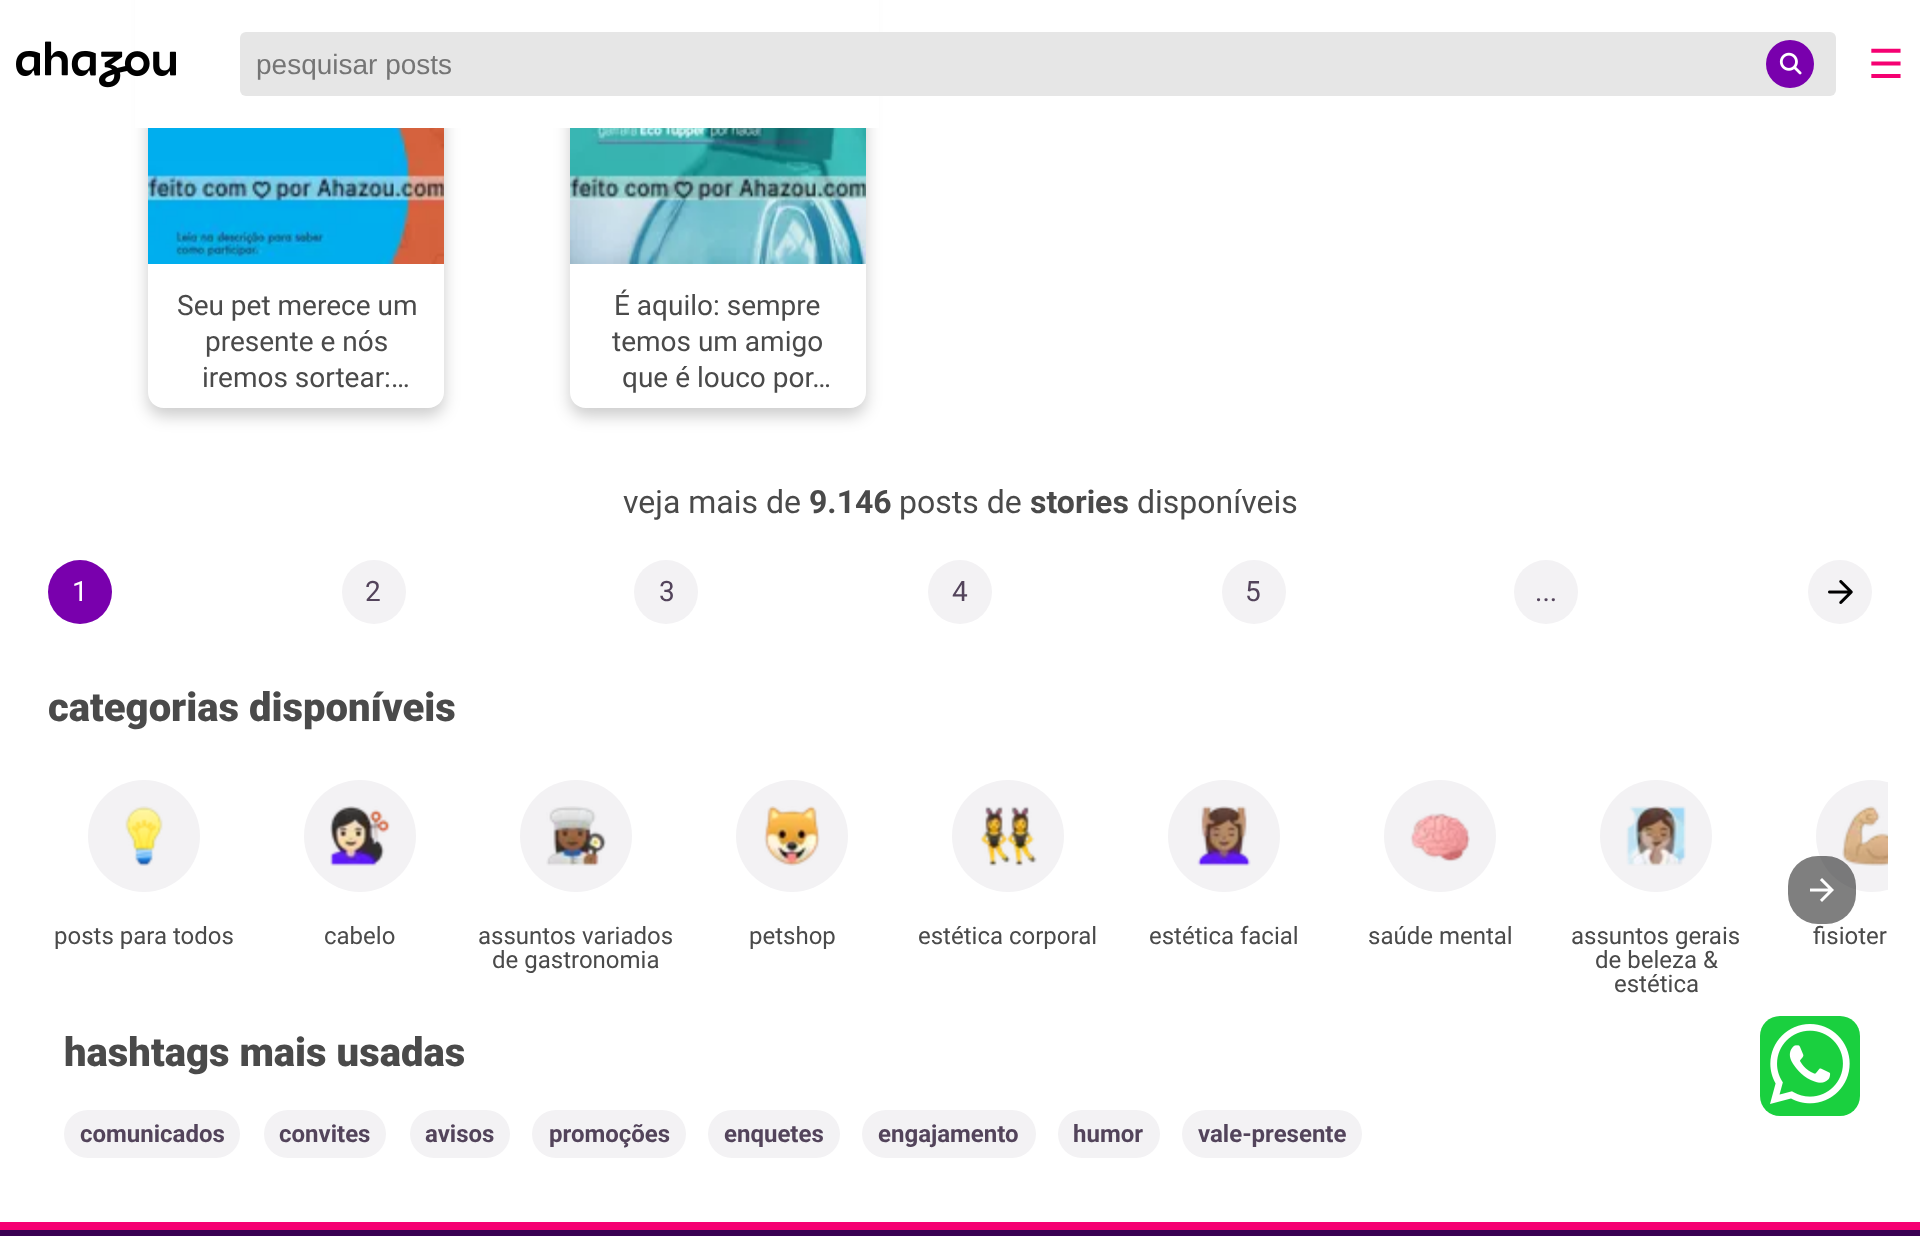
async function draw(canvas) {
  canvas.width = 1920
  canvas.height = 1236
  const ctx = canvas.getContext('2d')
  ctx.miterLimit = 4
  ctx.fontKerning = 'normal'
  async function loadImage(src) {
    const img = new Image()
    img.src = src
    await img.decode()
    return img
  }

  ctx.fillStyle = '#fff'
  ctx.fillRect(0, 0, 1920, 1236)
  ctx.save()
  ctx.beginPath()
  ctx.moveTo(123, 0)
  ctx.lineTo(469, 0)
  ctx.lineTo(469, 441)
  ctx.lineTo(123, 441)
  ctx.closePath()
  ctx.moveTo(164, -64)
  ctx.lineTo(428, -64)
  ctx.bezierCurveTo(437, -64, 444, -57, 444, -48)
  ctx.lineTo(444, 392)
  ctx.bezierCurveTo(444, 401, 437, 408, 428, 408)
  ctx.lineTo(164, 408)
  ctx.bezierCurveTo(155, 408, 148, 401, 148, 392)
  ctx.lineTo(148, -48)
  ctx.bezierCurveTo(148, -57, 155, -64, 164, -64)
  ctx.closePath()
  ctx.clip('evenodd')
  ctx.fillStyle = '#00000033'
  ctx.filter = 'blur(8px)'
  ctx.beginPath()
  ctx.roundRect(148, -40, 296, 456, 16)
  ctx.fill()
  ctx.filter = 'none'
  ctx.restore()
  ctx.save()
  ctx.beginPath()
  ctx.moveTo(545, 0)
  ctx.lineTo(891, 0)
  ctx.lineTo(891, 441)
  ctx.lineTo(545, 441)
  ctx.closePath()
  ctx.moveTo(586, -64)
  ctx.lineTo(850, -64)
  ctx.bezierCurveTo(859, -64, 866, -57, 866, -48)
  ctx.lineTo(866, 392)
  ctx.bezierCurveTo(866, 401, 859, 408, 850, 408)
  ctx.lineTo(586, 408)
  ctx.bezierCurveTo(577, 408, 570, 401, 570, 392)
  ctx.lineTo(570, -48)
  ctx.bezierCurveTo(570, -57, 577, -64, 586, -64)
  ctx.closePath()
  ctx.clip('evenodd')
  ctx.fillStyle = '#00000033'
  ctx.filter = 'blur(8px)'
  ctx.beginPath()
  ctx.roundRect(570, -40, 296, 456, 16)
  ctx.fill()
  ctx.filter = 'none'
  ctx.restore()
  ctx.fillRect(135, 0, 744, 128)
  ctx.drawImage(await loadImage('image0.png'), 16, 41, 160, 47)
  ctx.fillStyle = '#e6e6e6'
  ctx.beginPath()
  ctx.roundRect(240, 32, 1596, 64, 6)
  ctx.fill()
  ctx.font = '28px Liberation Sans'
  ctx.fillStyle = '#757575'
  ctx.fillText('pesquisar posts', 256, 74)
  ctx.fillStyle = '#7900ad'
  ctx.beginPath()
  ctx.arc(1790, 64, 24, 0, 2 * Math.PI)
  ctx.fill()
  ctx.drawImage(await loadImage('image1.png'), 1779, 52, 23, 23)
  ctx.font = '40px DejaVu Sans'
  ctx.fillStyle = '#f50072'
  ctx.fillText('☰', 1868, 78)
  ctx.drawImage(await loadImage('image2.png'), 148, 128, 296, 136)
  ctx.font = '28px Roboto'
  ctx.fillStyle = '#4a4a4a'
  ctx.fillText('Seu pet merece um', 177, 315)
  ctx.fillText('presente e nós', 205, 351)
  ctx.fillText('iremos sortear:…', 202, 387)
  ctx.drawImage(await loadImage('image3.png'), 570, 128, 296, 136)
  ctx.fillText('É aquilo: sempre', 614, 315)
  ctx.fillText('temos um amigo', 612, 351)
  ctx.fillText('que é louco por…', 622, 387)
  ctx.font = '32px Roboto'
  ctx.fillText('veja mais de', 623, 513)
  ctx.font = 'bold 32px Roboto'
  ctx.fillText('9.146', 809, 513)
  ctx.font = '32px Roboto'
  ctx.fillText('posts de', 899, 513)
  ctx.font = 'bold 32px Roboto'
  ctx.fillText('stories', 1030, 513)
  ctx.font = '32px Roboto'
  ctx.fillText('disponíveis', 1137, 513)
  ctx.fillStyle = '#7900ad'
  ctx.beginPath()
  ctx.arc(80, 592, 32, 0, 2 * Math.PI)
  ctx.fill()
  ctx.font = '28px Roboto'
  ctx.fillStyle = '#fff'
  ctx.fillText('1', 72, 601)
  ctx.fillStyle = '#f3f2f4'
  ctx.beginPath()
  ctx.arc(374, 592, 32, 0, 2 * Math.PI)
  ctx.fill()
  ctx.fillStyle = '#53445b'
  ctx.fillText('2', 365, 601)
  ctx.fillStyle = '#f3f2f4'
  ctx.beginPath()
  ctx.arc(666, 592, 32, 0, 2 * Math.PI)
  ctx.fill()
  ctx.fillStyle = '#53445b'
  ctx.fillText('3', 659, 601)
  ctx.fillStyle = '#f3f2f4'
  ctx.beginPath()
  ctx.arc(960, 592, 32, 0, 2 * Math.PI)
  ctx.fill()
  ctx.fillStyle = '#53445b'
  ctx.fillText('4', 952, 601)
  ctx.fillStyle = '#f3f2f4'
  ctx.beginPath()
  ctx.arc(1254, 592, 32, 0, 2 * Math.PI)
  ctx.fill()
  ctx.fillStyle = '#53445b'
  ctx.fillText('5', 1245, 601)
  ctx.fillStyle = '#f3f2f4'
  ctx.beginPath()
  ctx.arc(1546, 592, 32, 0, 2 * Math.PI)
  ctx.fill()
  ctx.fillStyle = '#53445b'
  ctx.fillText('...', 1535, 601)
  ctx.fillStyle = '#f3f2f4'
  ctx.beginPath()
  ctx.arc(1840, 592, 32, 0, 2 * Math.PI)
  ctx.fill()
  ctx.drawImage(await loadImage('image4.png'), 1828, 580, 25, 24)
  ctx.font = '900 40px Roboto'
  ctx.fillStyle = '#4a4a4a'
  ctx.fillText('categorias disponíveis', 48, 721)
  ctx.save()
  ctx.beginPath()
  ctx.rect(32, 780, 1856, 220)
  ctx.clip()
  ctx.fillStyle = '#f3f2f4'
  ctx.beginPath()
  ctx.arc(1872, 836, 56, 0, 2 * Math.PI)
  ctx.fill()
  ctx.restore()
  ctx.drawImage(await loadImage('image14.png'), 1842, 806, 46, 60)
  ctx.fillStyle = '#00000080'
  ctx.beginPath()
  ctx.roundRect(1788, 856, 68, 68, 30)
  ctx.fill()
  ctx.drawImage(await loadImage('image5.png'), 1810, 878, 24, 24)
  ctx.fillStyle = '#f3f2f4'
  ctx.beginPath()
  ctx.arc(144, 836, 56, 0, 2 * Math.PI)
  ctx.fill()
  ctx.drawImage(await loadImage('image6.png'), 125, 806, 38, 60)
  ctx.font = '24px Roboto'
  ctx.fillStyle = '#4a4a4a'
  ctx.fillText('posts para todos', 54, 944)
  ctx.fillStyle = '#f3f2f4'
  ctx.beginPath()
  ctx.arc(360, 836, 56, 0, 2 * Math.PI)
  ctx.fill()
  ctx.drawImage(await loadImage('image7.png'), 330, 806, 60, 60)
  ctx.fillStyle = '#4a4a4a'
  ctx.fillText('cabelo', 324, 944)
  ctx.fillStyle = '#f3f2f4'
  ctx.beginPath()
  ctx.arc(576, 836, 56, 0, 2 * Math.PI)
  ctx.fill()
  ctx.drawImage(await loadImage('image8.png'), 546, 806, 60, 60)
  ctx.fillStyle = '#4a4a4a'
  ctx.fillText('assuntos variados', 478, 944)
  ctx.fillText('de gastronomia', 492, 968)
  ctx.fillStyle = '#f3f2f4'
  ctx.beginPath()
  ctx.arc(792, 836, 56, 0, 2 * Math.PI)
  ctx.fill()
  ctx.drawImage(await loadImage('image9.png'), 764, 806, 56, 60)
  ctx.fillStyle = '#4a4a4a'
  ctx.fillText('petshop', 749, 944)
  ctx.fillStyle = '#f3f2f4'
  ctx.beginPath()
  ctx.arc(1008, 836, 56, 0, 2 * Math.PI)
  ctx.fill()
  ctx.drawImage(await loadImage('image10.png'), 980, 806, 57, 60)
  ctx.fillStyle = '#4a4a4a'
  ctx.fillText('estética corporal', 918, 944)
  ctx.fillStyle = '#f3f2f4'
  ctx.beginPath()
  ctx.arc(1224, 836, 56, 0, 2 * Math.PI)
  ctx.fill()
  ctx.drawImage(await loadImage('image11.png'), 1197, 806, 54, 60)
  ctx.fillStyle = '#4a4a4a'
  ctx.fillText('estética facial', 1149, 944)
  ctx.fillStyle = '#f3f2f4'
  ctx.beginPath()
  ctx.arc(1440, 836, 56, 0, 2 * Math.PI)
  ctx.fill()
  ctx.drawImage(await loadImage('image12.png'), 1410, 813, 60, 49)
  ctx.fillStyle = '#4a4a4a'
  ctx.fillText('saúde mental', 1368, 944)
  ctx.fillStyle = '#f3f2f4'
  ctx.beginPath()
  ctx.arc(1656, 836, 56, 0, 2 * Math.PI)
  ctx.fill()
  ctx.drawImage(await loadImage('image13.png'), 1626, 806, 60, 60)
  ctx.fillStyle = '#4a4a4a'
  ctx.fillText('assuntos gerais', 1571, 944)
  ctx.fillText('de beleza &', 1595, 968)
  ctx.fillText('estética', 1614, 992)
  ctx.fillText('fisioter', 1813, 944)
  ctx.font = '900 40px Roboto'
  ctx.fillText('hashtags mais usadas', 64, 1066)
  ctx.fillStyle = '#f3f2f4'
  ctx.beginPath()
  ctx.roundRect(64, 1110, 176, 48, 24)
  ctx.fill()
  ctx.font = 'bold 24px Roboto'
  ctx.fillStyle = '#53445b'
  ctx.fillText('comunicados', 80, 1142)
  ctx.fillStyle = '#f3f2f4'
  ctx.beginPath()
  ctx.roundRect(264, 1110, 122, 48, 24)
  ctx.fill()
  ctx.fillStyle = '#53445b'
  ctx.fillText('convites', 279, 1142)
  ctx.fillStyle = '#f3f2f4'
  ctx.beginPath()
  ctx.roundRect(410, 1110, 100, 48, 24)
  ctx.fill()
  ctx.fillStyle = '#53445b'
  ctx.fillText('avisos', 425, 1142)
  ctx.fillStyle = '#f3f2f4'
  ctx.beginPath()
  ctx.roundRect(532, 1110, 154, 48, 24)
  ctx.fill()
  ctx.fillStyle = '#53445b'
  ctx.fillText('promoções', 549, 1142)
  ctx.fillStyle = '#f3f2f4'
  ctx.beginPath()
  ctx.roundRect(708, 1110, 132, 48, 24)
  ctx.fill()
  ctx.fillStyle = '#53445b'
  ctx.fillText('enquetes', 724, 1142)
  ctx.fillStyle = '#f3f2f4'
  ctx.beginPath()
  ctx.roundRect(862, 1110, 174, 48, 24)
  ctx.fill()
  ctx.fillStyle = '#53445b'
  ctx.fillText('engajamento', 878, 1142)
  ctx.fillStyle = '#f3f2f4'
  ctx.beginPath()
  ctx.roundRect(1058, 1110, 102, 48, 24)
  ctx.fill()
  ctx.fillStyle = '#53445b'
  ctx.fillText('humor', 1073, 1142)
  ctx.fillStyle = '#f3f2f4'
  ctx.beginPath()
  ctx.roundRect(1182, 1110, 180, 48, 24)
  ctx.fill()
  ctx.fillStyle = '#53445b'
  ctx.fillText('vale-presente', 1198, 1142)
  ctx.fillStyle = '#3a0053'
  ctx.fillRect(0, 1230, 1920, 6)
  ctx.fillStyle = '#f50072'
  ctx.fillRect(0, 1222, 1920, 8)
  ctx.fillStyle = '#1ad03f'
  ctx.beginPath()
  ctx.roundRect(1760, 1016, 100, 100, 20)
  ctx.fill()
  ctx.drawImage(await loadImage('image15.png'), 1770, 1024, 80, 80)
}

draw(document.querySelector('canvas'))
